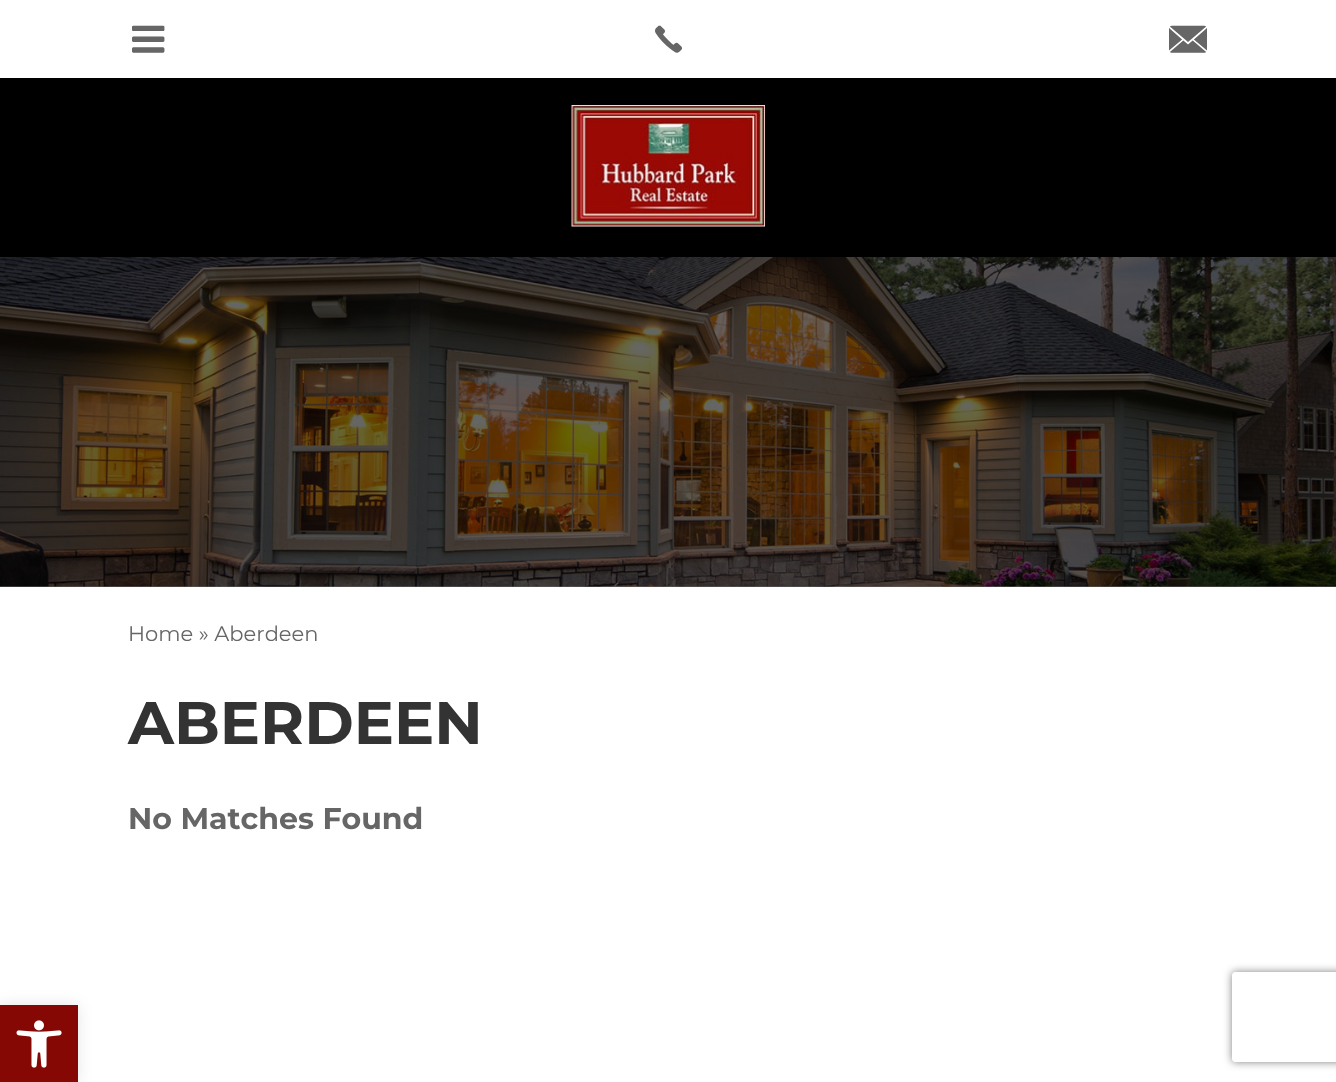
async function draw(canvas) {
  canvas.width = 1336
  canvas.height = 1082
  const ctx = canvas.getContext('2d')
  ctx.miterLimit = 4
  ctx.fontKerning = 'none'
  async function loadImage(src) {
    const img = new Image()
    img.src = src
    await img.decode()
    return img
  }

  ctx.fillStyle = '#fff'
  ctx.fillRect(0, 0, 1336, 1082)
  ctx.font = '27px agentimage'
  ctx.fillStyle = '#666'
  ctx.fillText('򰁰', 132, 51)
  ctx.fillText('򰁩', 655, 51)
  ctx.fillText('򰄢', 1169, 51)
  ctx.fillStyle = '#000'
  ctx.fillRect(0, 78, 1336, 179)
  ctx.drawImage(await loadImage('image0.png'), 571, 105, 194, 122)
  ctx.fillStyle = '#646363'
  ctx.fillRect(0, 586, 1336, 1)
  ctx.drawImage(await loadImage('image1.png'), 0, 257, 1336, 330)
  ctx.font = '21px Montserrat'
  ctx.fillStyle = '#666'
  ctx.fillText('Home » Aberdeen', 128, 641)
  ctx.font = 'bold 60px Montserrat'
  ctx.fillStyle = '#333'
  ctx.fillText('ABERDEEN', 128, 744)
  ctx.font = 'bold 30px Montserrat'
  ctx.fillStyle = '#666'
  ctx.fillText('No Matches Found', 128, 829)
  ctx.fillStyle = '#0000001a'
  ctx.filter = 'blur(7.5px)'
  ctx.beginPath()
  ctx.rect(0, 1005, 78, 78)
  ctx.fill()
  ctx.filter = 'none'
  ctx.fillStyle = '#850804'
  ctx.fillRect(0, 1005, 78, 77)
  ctx.drawImage(await loadImage('image2.png'), 16, 1020, 46, 48)
  ctx.save()
  ctx.beginPath()
  ctx.moveTo(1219, 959)
  ctx.lineTo(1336, 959)
  ctx.lineTo(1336, 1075)
  ctx.lineTo(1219, 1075)
  ctx.closePath()
  ctx.moveTo(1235, 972)
  ctx.lineTo(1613, 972)
  ctx.bezierCurveTo(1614.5, 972, 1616, 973.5, 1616, 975)
  ctx.lineTo(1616, 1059)
  ctx.bezierCurveTo(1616, 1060.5, 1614.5, 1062, 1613, 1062)
  ctx.lineTo(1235, 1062)
  ctx.bezierCurveTo(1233.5, 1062, 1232, 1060.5, 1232, 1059)
  ctx.lineTo(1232, 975)
  ctx.bezierCurveTo(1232, 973.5, 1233.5, 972, 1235, 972)
  ctx.closePath()
  ctx.clip('evenodd')
  ctx.fillStyle = '#808080'
  ctx.filter = 'blur(4px)'
  ctx.beginPath()
  ctx.roundRect(1232, 972, 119, 90, 3)
  ctx.fill()
  ctx.filter = 'none'
  ctx.restore()
}

draw(document.querySelector('canvas'))
